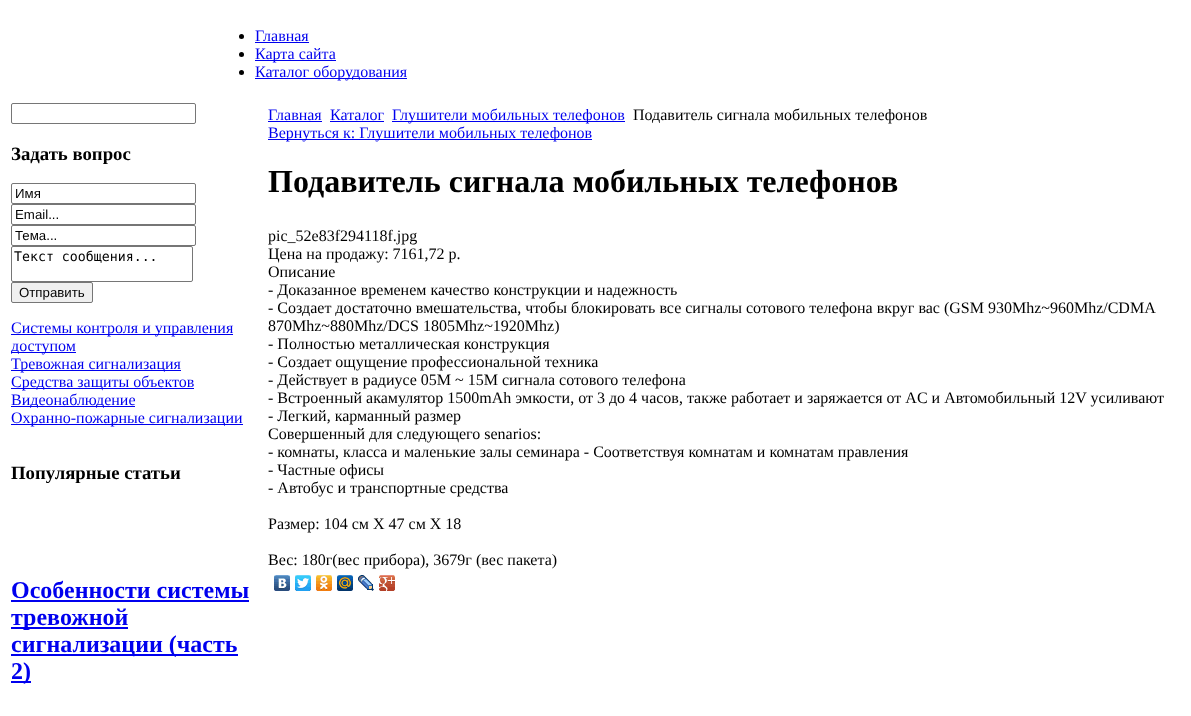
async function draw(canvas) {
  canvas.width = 1191
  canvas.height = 716
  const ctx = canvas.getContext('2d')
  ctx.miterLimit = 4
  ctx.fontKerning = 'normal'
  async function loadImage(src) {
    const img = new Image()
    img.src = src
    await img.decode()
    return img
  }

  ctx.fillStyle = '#fff'
  ctx.fillRect(0, 0, 1191, 716)
  ctx.fillStyle = '#000'
  ctx.beginPath()
  ctx.arc(241.5, 36.5, 2.5, 0, 2 * Math.PI)
  ctx.fill()
  ctx.font = '16px Liberation Serif'
  ctx.fillStyle = '#00e'
  ctx.fillText('Главная', 255, 41)
  ctx.fillRect(255, 42, 54, 1)
  ctx.fillStyle = '#000'
  ctx.beginPath()
  ctx.arc(241.5, 54.5, 2.5, 0, 2 * Math.PI)
  ctx.fill()
  ctx.fillStyle = '#00e'
  ctx.fillRect(255, 60, 81, 1)
  ctx.fillText('Карта сайта', 255, 59)
  ctx.fillStyle = '#000'
  ctx.beginPath()
  ctx.arc(241.5, 72.5, 2.5, 0, 2 * Math.PI)
  ctx.fill()
  ctx.fillStyle = '#00e'
  ctx.fillRect(255, 78, 152, 1)
  ctx.fillText('Каталог оборудования', 255, 77)
  ctx.beginPath()
  ctx.roundRect(11.5, 103.5, 184, 20, 1.5)
  ctx.strokeStyle = '#767676'
  ctx.stroke()
  ctx.font = 'bold 18.75px Liberation Serif'
  ctx.fillStyle = '#000'
  ctx.fillText('Задать вопрос', 11, 160)
  ctx.beginPath()
  ctx.roundRect(11.5, 183.5, 184, 20, 1.5)
  ctx.stroke()
  ctx.font = '13.25px Liberation Sans'
  ctx.fillText('Имя', 15, 198)
  ctx.beginPath()
  ctx.roundRect(11.5, 204.5, 184, 20, 1.5)
  ctx.stroke()
  ctx.fillText('Email...', 15, 219)
  ctx.beginPath()
  ctx.roundRect(11.5, 225.5, 184, 20, 1.5)
  ctx.stroke()
  ctx.fillText('Тема...', 15, 240)
  ctx.beginPath()
  ctx.roundRect(11.5, 246.5, 181, 35, 1.5)
  ctx.stroke()
  ctx.font = '13.25px DejaVu Sans Mono'
  ctx.fillText('Текст сообщения...', 14, 261)
  ctx.fillStyle = '#efefef'
  ctx.beginPath()
  ctx.roundRect(11.5, 282.5, 81, 20, 1.5)
  ctx.fill()
  ctx.stroke()
  ctx.font = '13.25px Liberation Sans'
  ctx.fillStyle = '#000'
  ctx.fillText('Отправить', 19, 297)
  ctx.fillStyle = '#00e'
  ctx.fillRect(11, 334, 222, 1)
  ctx.font = '16px Liberation Serif'
  ctx.fillText('Системы контроля и управления', 11, 333)
  ctx.fillRect(11, 352, 65, 1)
  ctx.fillText('доступом', 11, 351)
  ctx.fillRect(11, 370, 170, 1)
  ctx.fillText('Тревожная сигнализация', 11, 369)
  ctx.fillRect(11, 388, 183, 1)
  ctx.fillText('Средства защиты объектов', 11, 387)
  ctx.fillRect(11, 406, 124, 1)
  ctx.fillText('Видеонаблюдение', 11, 405)
  ctx.fillRect(11, 424, 232, 1)
  ctx.fillText('Охранно-пожарные сигнализации', 11, 423)
  ctx.font = 'bold 18.75px Liberation Serif'
  ctx.fillStyle = '#000'
  ctx.fillText('Популярные статьи', 11, 479)
  ctx.font = 'bold 24px Liberation Serif'
  ctx.fillStyle = '#00e'
  ctx.fillText('Особенности системы', 11, 598)
  ctx.fillRect(11, 600, 238, 2)
  ctx.fillRect(11, 627, 117, 2)
  ctx.fillText('тревожной', 11, 625)
  ctx.fillRect(11, 654, 227, 2)
  ctx.fillText('сигнализации (часть', 11, 652)
  ctx.fillRect(11, 681, 20, 2)
  ctx.fillText('2)', 11, 679)
  ctx.font = '16px Liberation Serif'
  ctx.fillText('Главная', 268, 120)
  ctx.fillRect(268, 121, 54, 1)
  ctx.fillText('Каталог', 330, 120)
  ctx.fillRect(330, 121, 54, 1)
  ctx.fillRect(392, 121, 233, 1)
  ctx.fillText('Глушители мобильных телефонов', 392, 120)
  ctx.fillStyle = '#000'
  ctx.fillText('Подавитель сигнала мобильных телефонов', 633, 120)
  ctx.fillStyle = '#00e'
  ctx.fillRect(268, 139, 324, 1)
  ctx.fillText('Вернуться к: Глушители мобильных телефонов', 268, 138)
  ctx.font = 'bold 32px Liberation Serif'
  ctx.fillStyle = '#000'
  ctx.fillText('Подавитель сигнала мобильных телефонов', 268, 192)
  ctx.font = '16px Liberation Serif'
  ctx.fillText('pic_52e83f294118f.jpg', 268, 241)
  ctx.fillText('Цена на продажу: 7161,72 р.', 268, 259)
  ctx.fillText('Описание', 268, 277)
  ctx.fillText('- Доказанное временем качество конструкции и надежность', 268, 295)
  ctx.fillText('- Создает достаточно вмешательства, чтобы блокировать все сигналы сотового телефона вкруг вас (GSM 930Mhz~960Mhz/CDMA', 268, 313)
  ctx.fillText('870Mhz~880Mhz/DCS 1805Mhz~1920Mhz)', 268, 331)
  ctx.fillText('- Полностью металлическая конструкция', 268, 349)
  ctx.fillText('- Создает ощущение профессиональной техника', 268, 367)
  ctx.fillText('- Действует в радиусе 05M ~ 15M сигнала сотового телефона', 268, 385)
  ctx.fillText('- Встроенный акамулятор 1500mAh эмкости, от 3 до 4 часов, также работает и заряжается от AC и Автомобильный 12V усиливают', 268, 403)
  ctx.fillText('- Легкий, карманный размер', 268, 421)
  ctx.fillText('Совершенный для следующего senarios:', 268, 439)
  ctx.fillText('- комнаты, класса и маленькие залы семинара - Соответствуя комнатам и комнатам правления', 268, 457)
  ctx.fillText('- Частные офисы', 268, 475)
  ctx.fillText('- Автобус и транспортные средства', 268, 493)
  ctx.fillText('Размер: 104 см Х 47 см Х 18', 268, 529)
  ctx.fillText('Вес: 180г(вес прибора), 3679г (вес пакета)', 268, 565)
  ctx.drawImage(await loadImage('image0.png'), 274, 575, 16, 16)
  ctx.drawImage(await loadImage('image1.png'), 295, 575, 16, 16)
  ctx.drawImage(await loadImage('image2.png'), 316, 575, 16, 16)
  ctx.drawImage(await loadImage('image3.png'), 337, 575, 16, 16)
  ctx.drawImage(await loadImage('image4.png'), 358, 575, 16, 16)
  ctx.drawImage(await loadImage('image5.png'), 379, 575, 16, 16)
}

draw(document.querySelector('canvas'))
